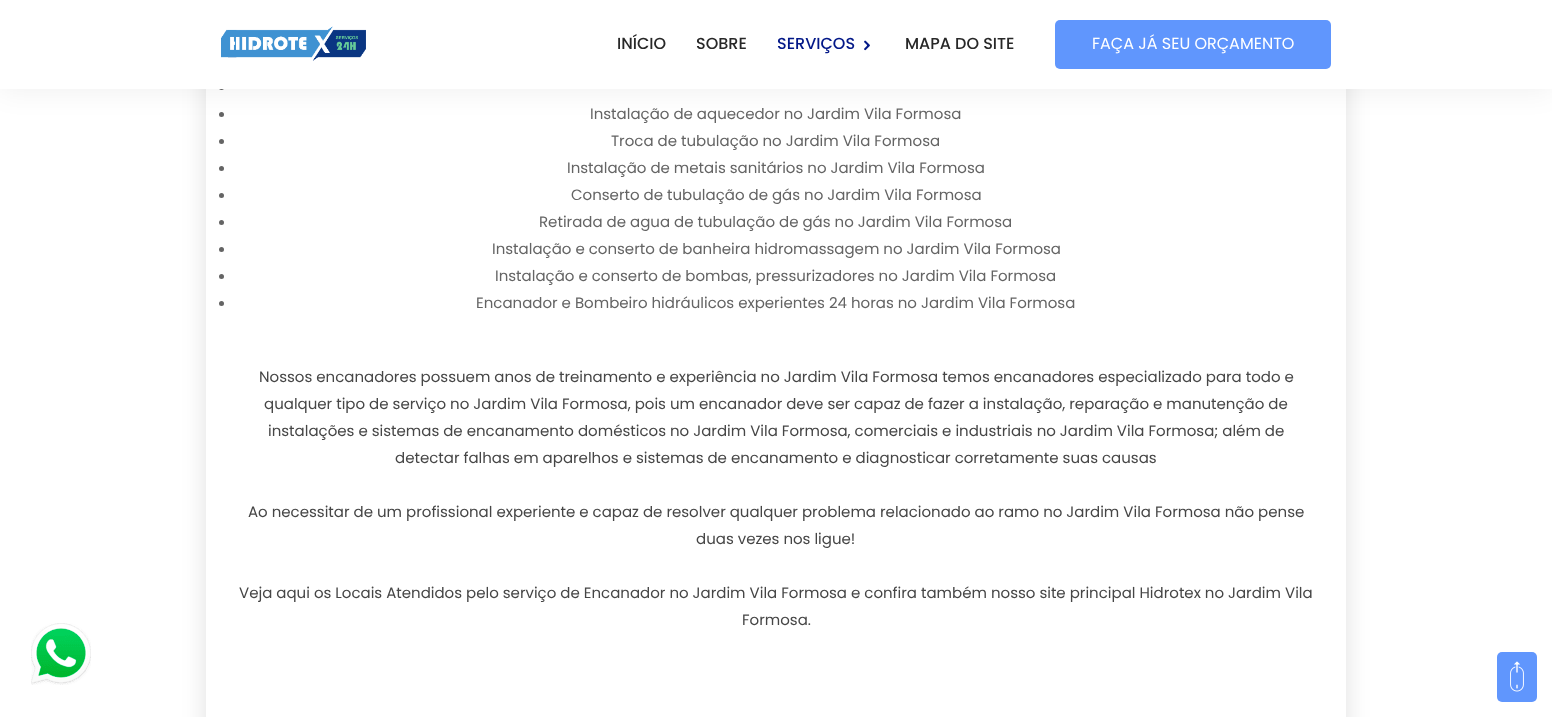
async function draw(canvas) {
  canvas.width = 1552
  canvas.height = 717
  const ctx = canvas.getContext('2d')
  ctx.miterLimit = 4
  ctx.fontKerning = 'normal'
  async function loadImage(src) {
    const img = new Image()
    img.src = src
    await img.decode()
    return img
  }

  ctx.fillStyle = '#fff'
  ctx.fillRect(0, 0, 1552, 717)
  ctx.save()
  ctx.beginPath()
  ctx.moveTo(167, 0)
  ctx.lineTo(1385, 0)
  ctx.lineTo(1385, 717)
  ctx.lineTo(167, 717)
  ctx.closePath()
  ctx.moveTo(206, -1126)
  ctx.lineTo(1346, -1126)
  ctx.lineTo(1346, 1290)
  ctx.lineTo(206, 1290)
  ctx.closePath()
  ctx.clip('evenodd')
  ctx.fillStyle = '#0000001f'
  ctx.filter = 'blur(12.5px)'
  ctx.beginPath()
  ctx.rect(206, -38, 1140, 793)
  ctx.fill()
  ctx.filter = 'none'
  ctx.restore()
  ctx.fillStyle = '#646464'
  ctx.beginPath()
  ctx.arc(221.5, 87.5, 2.5, 0, 2 * Math.PI)
  ctx.fill()
  ctx.beginPath()
  ctx.arc(221.5, 114.5, 2.5, 0, 2 * Math.PI)
  ctx.fill()
  ctx.fillStyle = '#0000000f'
  ctx.filter = 'blur(14px)'
  ctx.beginPath()
  ctx.rect(0, 2, 1552, 89)
  ctx.fill()
  ctx.filter = 'none'
  ctx.fillStyle = '#fff'
  ctx.fillRect(0, 0, 1552, 89)
  ctx.drawImage(await loadImage('image0.png'), 221, 26, 145, 35)
  ctx.font = '500 16px Poppins'
  ctx.fillStyle = '#282828'
  ctx.fillText('INÍCIO', 617, 49)
  ctx.fillText('SOBRE', 696, 49)
  ctx.fillStyle = '#031888'
  ctx.fillText('SERVIÇOS', 777, 49)
  ctx.drawImage(await loadImage('image1.png'), 864, 40, 6, 11)
  ctx.fillStyle = '#282828'
  ctx.fillText('MAPA DO SITE', 905, 49)
  ctx.fillStyle = '#6096fd'
  ctx.beginPath()
  ctx.roundRect(1055, 20, 276, 49, 5)
  ctx.fill()
  ctx.font = '16px Poppins'
  ctx.fillStyle = '#fff'
  ctx.fillText('FAÇA JÁ SEU ORÇAMENTO', 1092, 49)
  ctx.font = '15px Poppins'
  ctx.fillStyle = '#646464'
  ctx.fillText('Instalação de aquecedor no Jardim Vila Formosa', 590, 119)
  ctx.beginPath()
  ctx.arc(221.5, 141.5, 2.5, 0, 2 * Math.PI)
  ctx.fill()
  ctx.fillText('Troca de tubulação no Jardim Vila Formosa', 611, 146)
  ctx.beginPath()
  ctx.arc(221.5, 168.5, 2.5, 0, 2 * Math.PI)
  ctx.fill()
  ctx.fillText('Instalação de metais sanitários no Jardim Vila Formosa', 567, 173)
  ctx.beginPath()
  ctx.arc(221.5, 195.5, 2.5, 0, 2 * Math.PI)
  ctx.fill()
  ctx.fillText('Conserto de tubulação de gás no Jardim Vila Formosa', 571, 200)
  ctx.beginPath()
  ctx.arc(221.5, 222.5, 2.5, 0, 2 * Math.PI)
  ctx.fill()
  ctx.fillText('Retirada de agua de tubulação de gás no Jardim Vila Formosa', 539, 227)
  ctx.beginPath()
  ctx.arc(221.5, 249.5, 2.5, 0, 2 * Math.PI)
  ctx.fill()
  ctx.fillText('Instalação e conserto de banheira hidromassagem no Jardim Vila Formosa', 492, 254)
  ctx.beginPath()
  ctx.arc(221.5, 276.5, 2.5, 0, 2 * Math.PI)
  ctx.fill()
  ctx.fillText('Instalação e conserto de bombas, pressurizadores no Jardim Vila Formosa', 495, 281)
  ctx.beginPath()
  ctx.arc(221.5, 303.5, 2.5, 0, 2 * Math.PI)
  ctx.fill()
  ctx.fillText('Encanador e Bombeiro hidráulicos experientes 24 horas no Jardim Vila Formosa', 476, 308)
  ctx.fillStyle = '#464646'
  ctx.fillText('Nossos encanadores possuem anos de treinamento e experiência no Jardim Vila Formosa temos encanadores especializado para todo e', 259, 382)
  ctx.fillText('qualquer tipo de serviço no Jardim Vila Formosa, pois um encanador deve ser capaz de fazer a instalação, reparação e manutenção de', 264, 409)
  ctx.fillText('instalações e sistemas de encanamento domésticos no Jardim Vila Formosa, comerciais e industriais no Jardim Vila Formosa; além de', 268, 436)
  ctx.fillText('detectar falhas em aparelhos e sistemas de encanamento e diagnosticar corretamente suas causas', 395, 463)
  ctx.fillText('Ao necessitar de um profissional experiente e capaz de resolver qualquer problema relacionado ao ramo no Jardim Vila Formosa não pense', 248, 517)
  ctx.fillText('duas vezes nos ligue!', 696, 544)
  ctx.fillText('Veja aqui os Locais Atendidos pelo serviço de Encanador no Jardim Vila Formosa e confira também nosso site principal Hidrotex no Jardim Vila', 239, 598)
  ctx.fillText('Formosa.', 742, 625)
  ctx.drawImage(await loadImage('image2.png'), 31, 623, 60, 62)
  ctx.fillStyle = '#6096fd'
  ctx.beginPath()
  ctx.roundRect(1497, 652, 40, 50, 5)
  ctx.fill()
  ctx.drawImage(await loadImage('image3.png'), 1510, 661, 14, 31)
}

draw(document.querySelector('canvas'))
